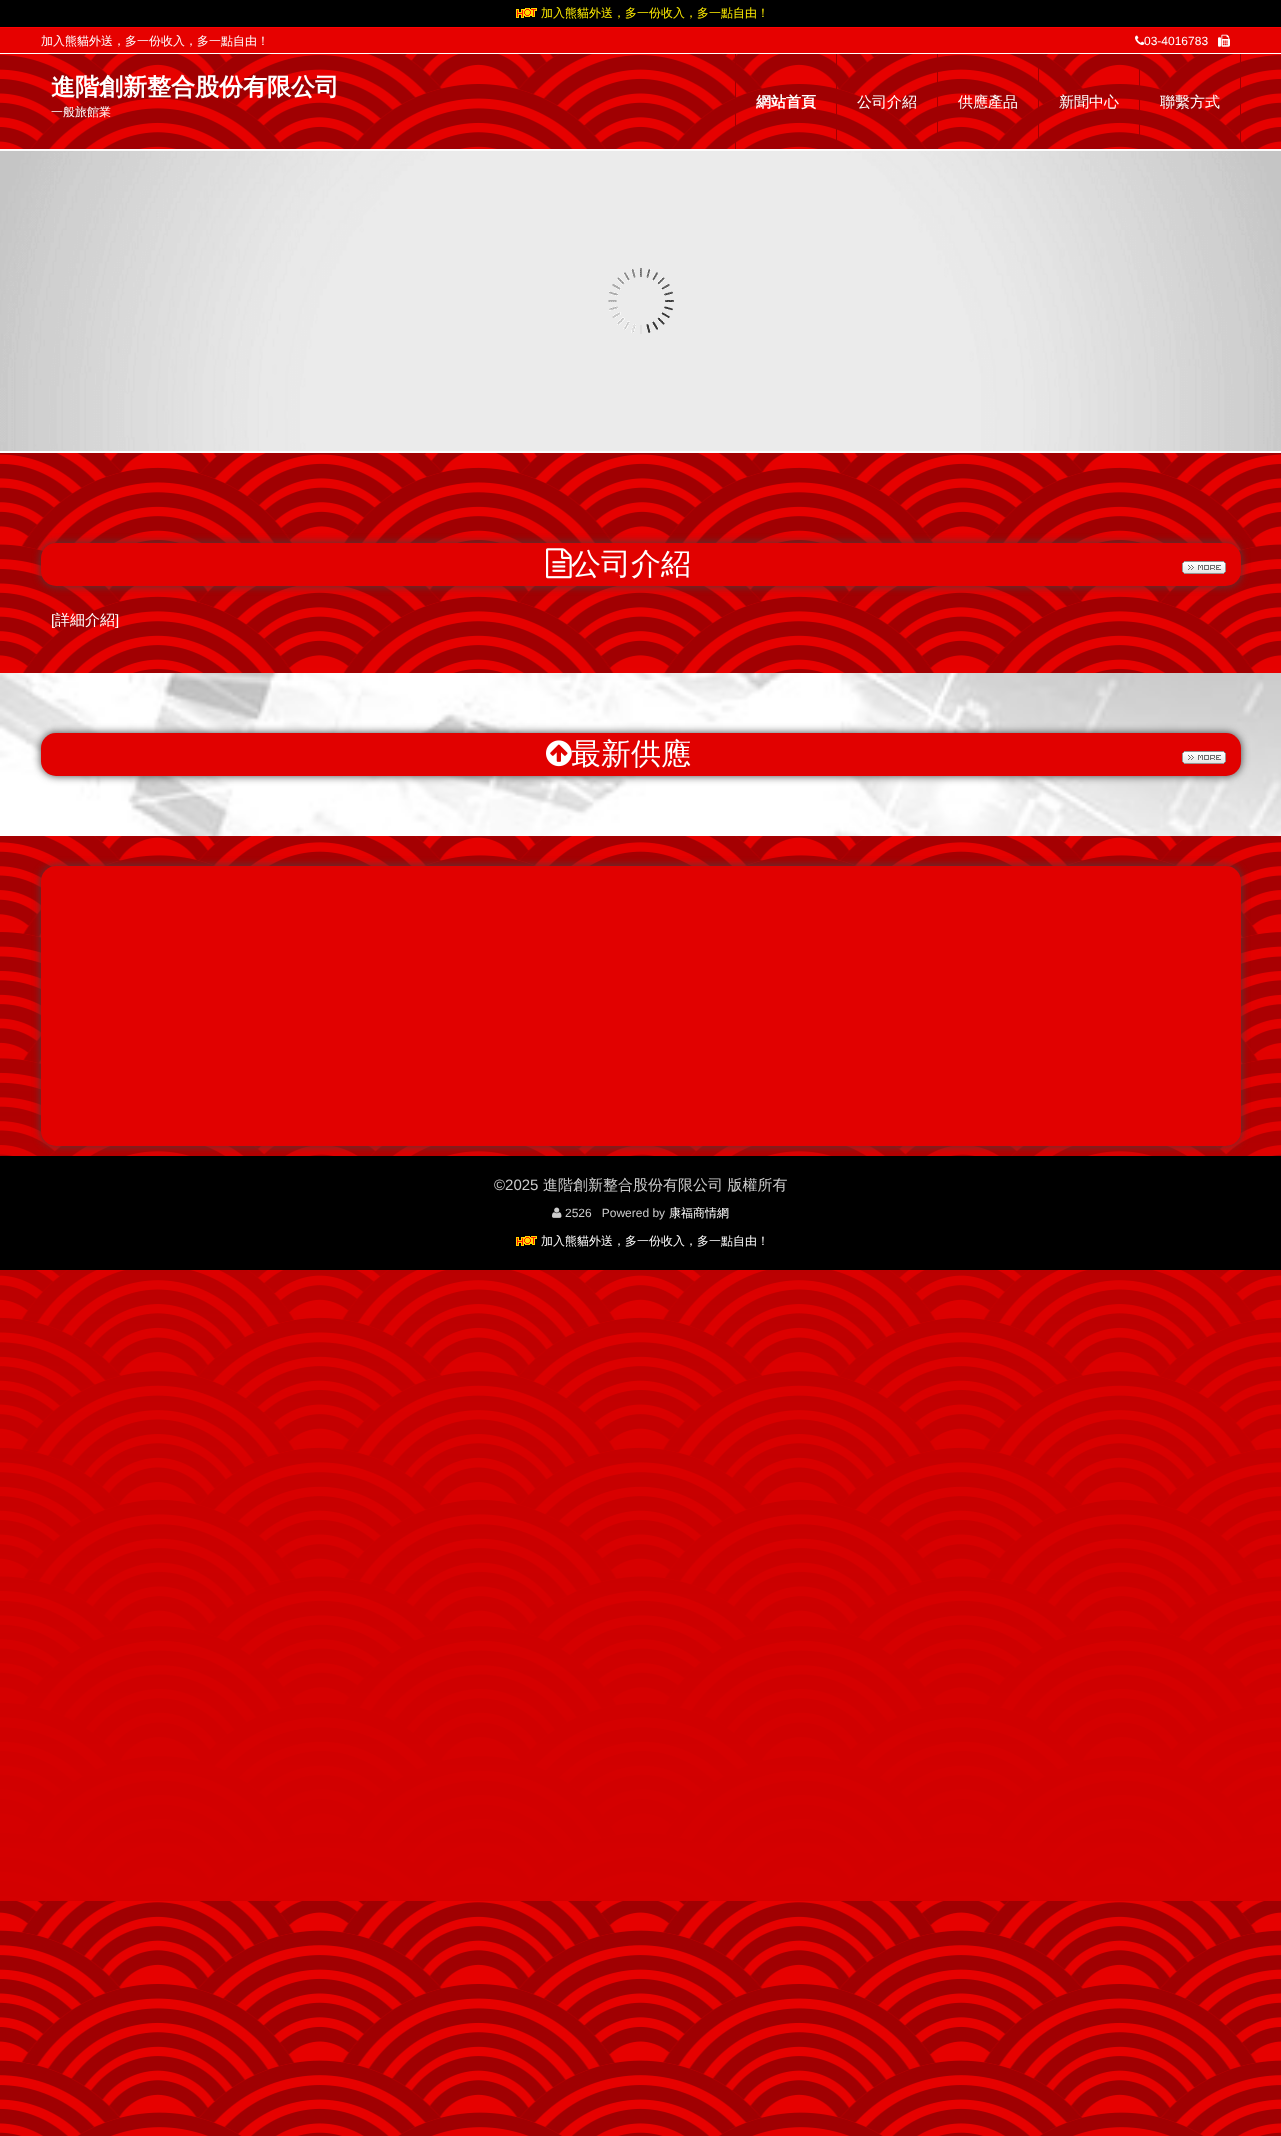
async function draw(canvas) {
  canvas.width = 1281
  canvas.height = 2136
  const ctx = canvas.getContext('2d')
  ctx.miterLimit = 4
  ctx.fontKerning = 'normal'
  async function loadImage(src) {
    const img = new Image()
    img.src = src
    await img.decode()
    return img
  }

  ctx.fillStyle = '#d40100'
  ctx.fillRect(0, 0, 1281, 2136)
  ctx.drawImage(await loadImage('image0.png'), 0, 54, 1281, 2082)
  ctx.fillStyle = '#000'
  ctx.fillRect(0, 0, 1281, 27)
  ctx.fillStyle = '#f00'
  ctx.fillRect(0, 27, 1281, 1)
  ctx.drawImage(await loadImage('image1.png'), 516, 8, 21, 10)
  ctx.font = '500 12px WenQuanYi Zen Hei'
  ctx.fillStyle = '#ffed00'
  ctx.fillText('加入熊貓外送，多一份收入，多一點自由！', 541, 17)
  ctx.fillStyle = '#e60100'
  ctx.fillRect(0, 28, 1281, 25)
  ctx.fillStyle = '#fff'
  ctx.fillRect(0, 53, 1281, 1)
  ctx.fillText('加入熊貓外送，多一份收入，多一點自由！', 41, 45)
  ctx.drawImage(await loadImage('image2.png'), 1135, 35, 10, 10)
  ctx.font = '12px Liberation Sans'
  ctx.fillText('03-4016783', 1144, 45)
  ctx.drawImage(await loadImage('image3.png'), 1218, 34, 12, 13)
  ctx.font = 'bold 24px WenQuanYi Zen Hei'
  ctx.fillText('進階創新整合股份有限公司', 51, 95)
  ctx.font = '500 12px WenQuanYi Zen Hei'
  ctx.fillText('一般旅館業', 51, 116)
  ctx.fillStyle = '#a00002'
  ctx.fillRect(735, 54, 1, 95)
  ctx.fillRect(836, 54, 1, 86)
  ctx.font = 'bold 15px WenQuanYi Zen Hei'
  ctx.fillStyle = '#fff'
  ctx.fillText('網站首頁', 756, 107)
  ctx.fillStyle = '#a00002'
  ctx.fillRect(937, 54, 1, 95)
  ctx.font = '500 15px WenQuanYi Zen Hei'
  ctx.fillStyle = '#fff'
  ctx.fillText('公司介紹', 857, 107)
  ctx.fillStyle = '#a00002'
  ctx.fillRect(1038, 68, 1, 71)
  ctx.fillStyle = '#fff'
  ctx.fillText('供應產品', 958, 107)
  ctx.fillStyle = '#a00002'
  ctx.fillRect(1139, 54, 1, 81)
  ctx.fillStyle = '#fff'
  ctx.fillText('新聞中心', 1059, 107)
  ctx.fillStyle = '#a00002'
  ctx.fillRect(1240, 54, 1, 95)
  ctx.fillStyle = '#fff'
  ctx.fillText('聯繫方式', 1160, 107)
  ctx.drawImage(await loadImage('image4.png'), 0, 151, 1281, 300)
  ctx.fillStyle = '#fcfcfc'
  ctx.fillRect(0, 149, 1281, 2)
  ctx.fillRect(0, 451, 1281, 2)
  ctx.drawImage(await loadImage('image5.png'), 608, 268, 66, 66)
  ctx.fillStyle = '#424242'
  ctx.filter = 'blur(4.5px)'
  ctx.beginPath()
  ctx.roundRect(41, 543, 1200, 43, 15)
  ctx.fill()
  ctx.filter = 'none'
  ctx.fillStyle = '#e10100'
  ctx.beginPath()
  ctx.roundRect(41, 543, 1200, 43, 15)
  ctx.fill()
  ctx.drawImage(await loadImage('image6.png'), 546, 548, 26, 31)
  ctx.font = '500 30px WenQuanYi Zen Hei'
  ctx.fillStyle = '#fff'
  ctx.fillText('公司介紹', 571, 574)
  ctx.drawImage(await loadImage('image7.png'), 1182, 561, 44, 13)
  ctx.font = '15px Liberation Sans'
  ctx.fillText('[', 51, 625)
  ctx.font = '500 15px WenQuanYi Zen Hei'
  ctx.fillText('詳細介紹', 55, 625)
  ctx.font = '15px Liberation Sans'
  ctx.fillText(']', 115, 625)
  ctx.drawImage(await loadImage('image8.png'), 0, 673, 1281, 163)
  ctx.fillStyle = '#424242'
  ctx.filter = 'blur(4.5px)'
  ctx.beginPath()
  ctx.roundRect(41, 733, 1200, 43, 15)
  ctx.fill()
  ctx.filter = 'none'
  ctx.fillStyle = '#e10100'
  ctx.beginPath()
  ctx.roundRect(41, 733, 1200, 43, 15)
  ctx.fill()
  ctx.drawImage(await loadImage('image9.png'), 546, 740, 26, 27)
  ctx.font = '500 30px WenQuanYi Zen Hei'
  ctx.fillStyle = '#fff'
  ctx.fillText('最新供應', 571, 764)
  ctx.drawImage(await loadImage('image7.png'), 1182, 751, 44, 13)
  ctx.fillStyle = '#000'
  ctx.fillRect(0, 1156, 1281, 114)
  ctx.fillStyle = '#424242'
  ctx.filter = 'blur(4.5px)'
  ctx.beginPath()
  ctx.roundRect(41, 866, 1200, 280, 15)
  ctx.fill()
  ctx.filter = 'none'
  ctx.fillStyle = '#e10100'
  ctx.beginPath()
  ctx.roundRect(41, 866, 1200, 280, 15)
  ctx.fill()
  ctx.font = '15px Liberation Sans'
  ctx.fillStyle = '#ccc'
  ctx.fillText('©2025', 494, 1190)
  ctx.font = '500 15px WenQuanYi Zen Hei'
  ctx.fillText('進階創新整合股份有限公司 版權所有', 543, 1190)
  ctx.drawImage(await loadImage('image10.png'), 552, 1207, 10, 11)
  ctx.font = '12px Liberation Sans'
  ctx.fillText('2526   Powered by', 565, 1217)
  ctx.font = '500 12px WenQuanYi Zen Hei'
  ctx.fillStyle = '#fff'
  ctx.fillText('康福商情網', 669, 1217)
  ctx.drawImage(await loadImage('image1.png'), 516, 1236, 21, 10)
  ctx.fillText('加入熊貓外送，多一份收入，多一點自由！', 541, 1245)
}

draw(document.querySelector('canvas'))
